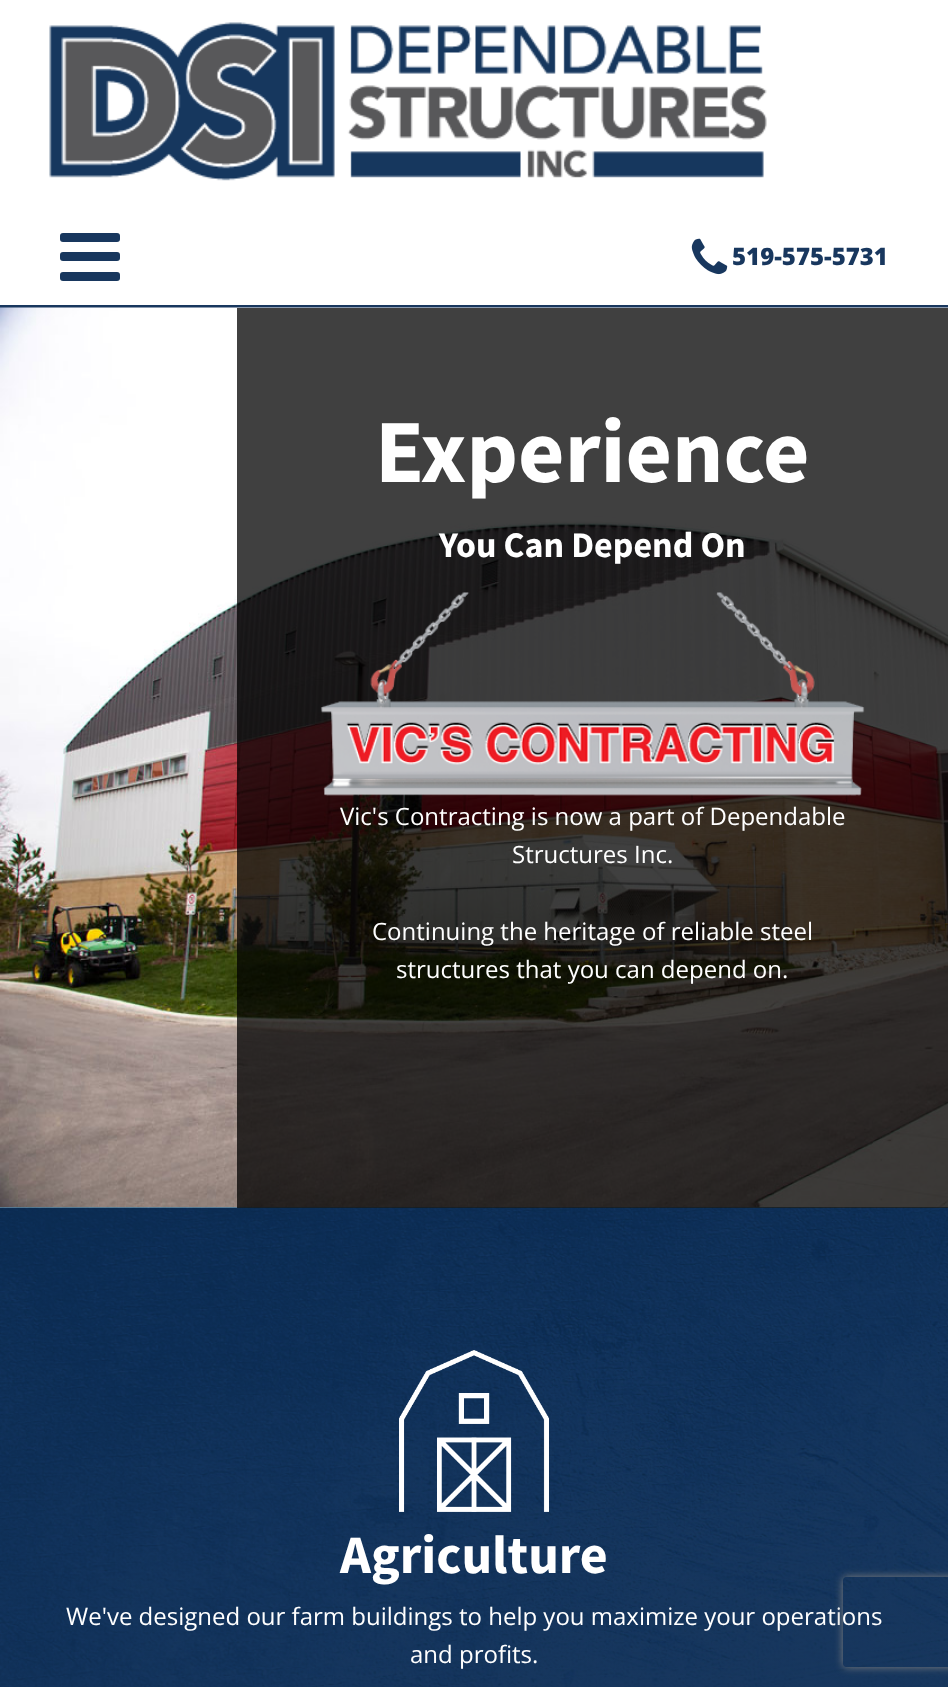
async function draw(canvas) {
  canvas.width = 948
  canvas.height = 1687
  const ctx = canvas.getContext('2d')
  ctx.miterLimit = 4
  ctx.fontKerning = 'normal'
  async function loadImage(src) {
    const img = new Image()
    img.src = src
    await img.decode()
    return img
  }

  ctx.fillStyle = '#fff'
  ctx.fillRect(0, 0, 948, 1687)
  ctx.fillStyle = '#18375e'
  ctx.fillRect(0, 305, 948, 3)
  ctx.drawImage(await loadImage('image0.png'), 49, 22, 718, 159)
  ctx.beginPath()
  ctx.roundRect(60, 233, 60, 9, 3)
  ctx.fill()
  ctx.beginPath()
  ctx.roundRect(60, 252, 60, 9, 3)
  ctx.fill()
  ctx.beginPath()
  ctx.roundRect(60, 272, 60, 9, 3)
  ctx.fill()
  ctx.drawImage(await loadImage('image1.png'), 691, 238, 37, 37)
  ctx.font = '800 24px Open Sans'
  ctx.fillText('519-575-5731', 732, 265)
  ctx.drawImage(await loadImage('image2.png'), 0, 307, 948, 901)
  ctx.drawImage(await loadImage('image4.png'), 0, 1207, 948, 480)
  ctx.fillStyle = '#000000bf'
  ctx.fillRect(237, 308, 711, 900)
  ctx.font = 'bold 90px Source Sans Pro'
  ctx.fillStyle = '#fff'
  ctx.fillText('Experience', 375, 482)
  ctx.font = 'bold 36px Source Sans Pro'
  ctx.fillText('You Can Depend On', 439, 557)
  ctx.drawImage(await loadImage('image3.png'), 320, 592, 545, 204)
  ctx.font = '24px Open Sans'
  ctx.fillText('Vic\'s Contracting is now a part of Dependable', 340, 825)
  ctx.fillText('Structures Inc.', 512, 863)
  ctx.fillText('Continuing the heritage of reliable steel', 372, 940)
  ctx.fillText('structures that you can depend on.', 396, 978)
  ctx.drawImage(await loadImage('image5.png'), 399, 1350, 150, 162)
  ctx.font = 'bold 54px Source Sans Pro'
  ctx.fillText('Agriculture', 340, 1573)
  ctx.font = '24px Open Sans'
  ctx.fillText('We\'ve designed our farm buildings to help you maximize your operations', 66, 1625)
  ctx.fillText('and profits.', 410, 1663)
  ctx.save()
  ctx.beginPath()
  ctx.moveTo(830, 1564)
  ctx.lineTo(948, 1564)
  ctx.lineTo(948, 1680)
  ctx.lineTo(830, 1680)
  ctx.closePath()
  ctx.moveTo(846, 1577)
  ctx.lineTo(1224, 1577)
  ctx.bezierCurveTo(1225.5, 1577, 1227, 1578.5, 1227, 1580)
  ctx.lineTo(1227, 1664)
  ctx.bezierCurveTo(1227, 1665.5, 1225.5, 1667, 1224, 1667)
  ctx.lineTo(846, 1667)
  ctx.bezierCurveTo(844.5, 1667, 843, 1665.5, 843, 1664)
  ctx.lineTo(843, 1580)
  ctx.bezierCurveTo(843, 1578.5, 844.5, 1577, 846, 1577)
  ctx.closePath()
  ctx.clip('evenodd')
  ctx.fillStyle = '#808080'
  ctx.filter = 'blur(4px)'
  ctx.beginPath()
  ctx.roundRect(843, 1577, 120, 90, 3)
  ctx.fill()
  ctx.filter = 'none'
  ctx.restore()
}

draw(document.querySelector('canvas'))
